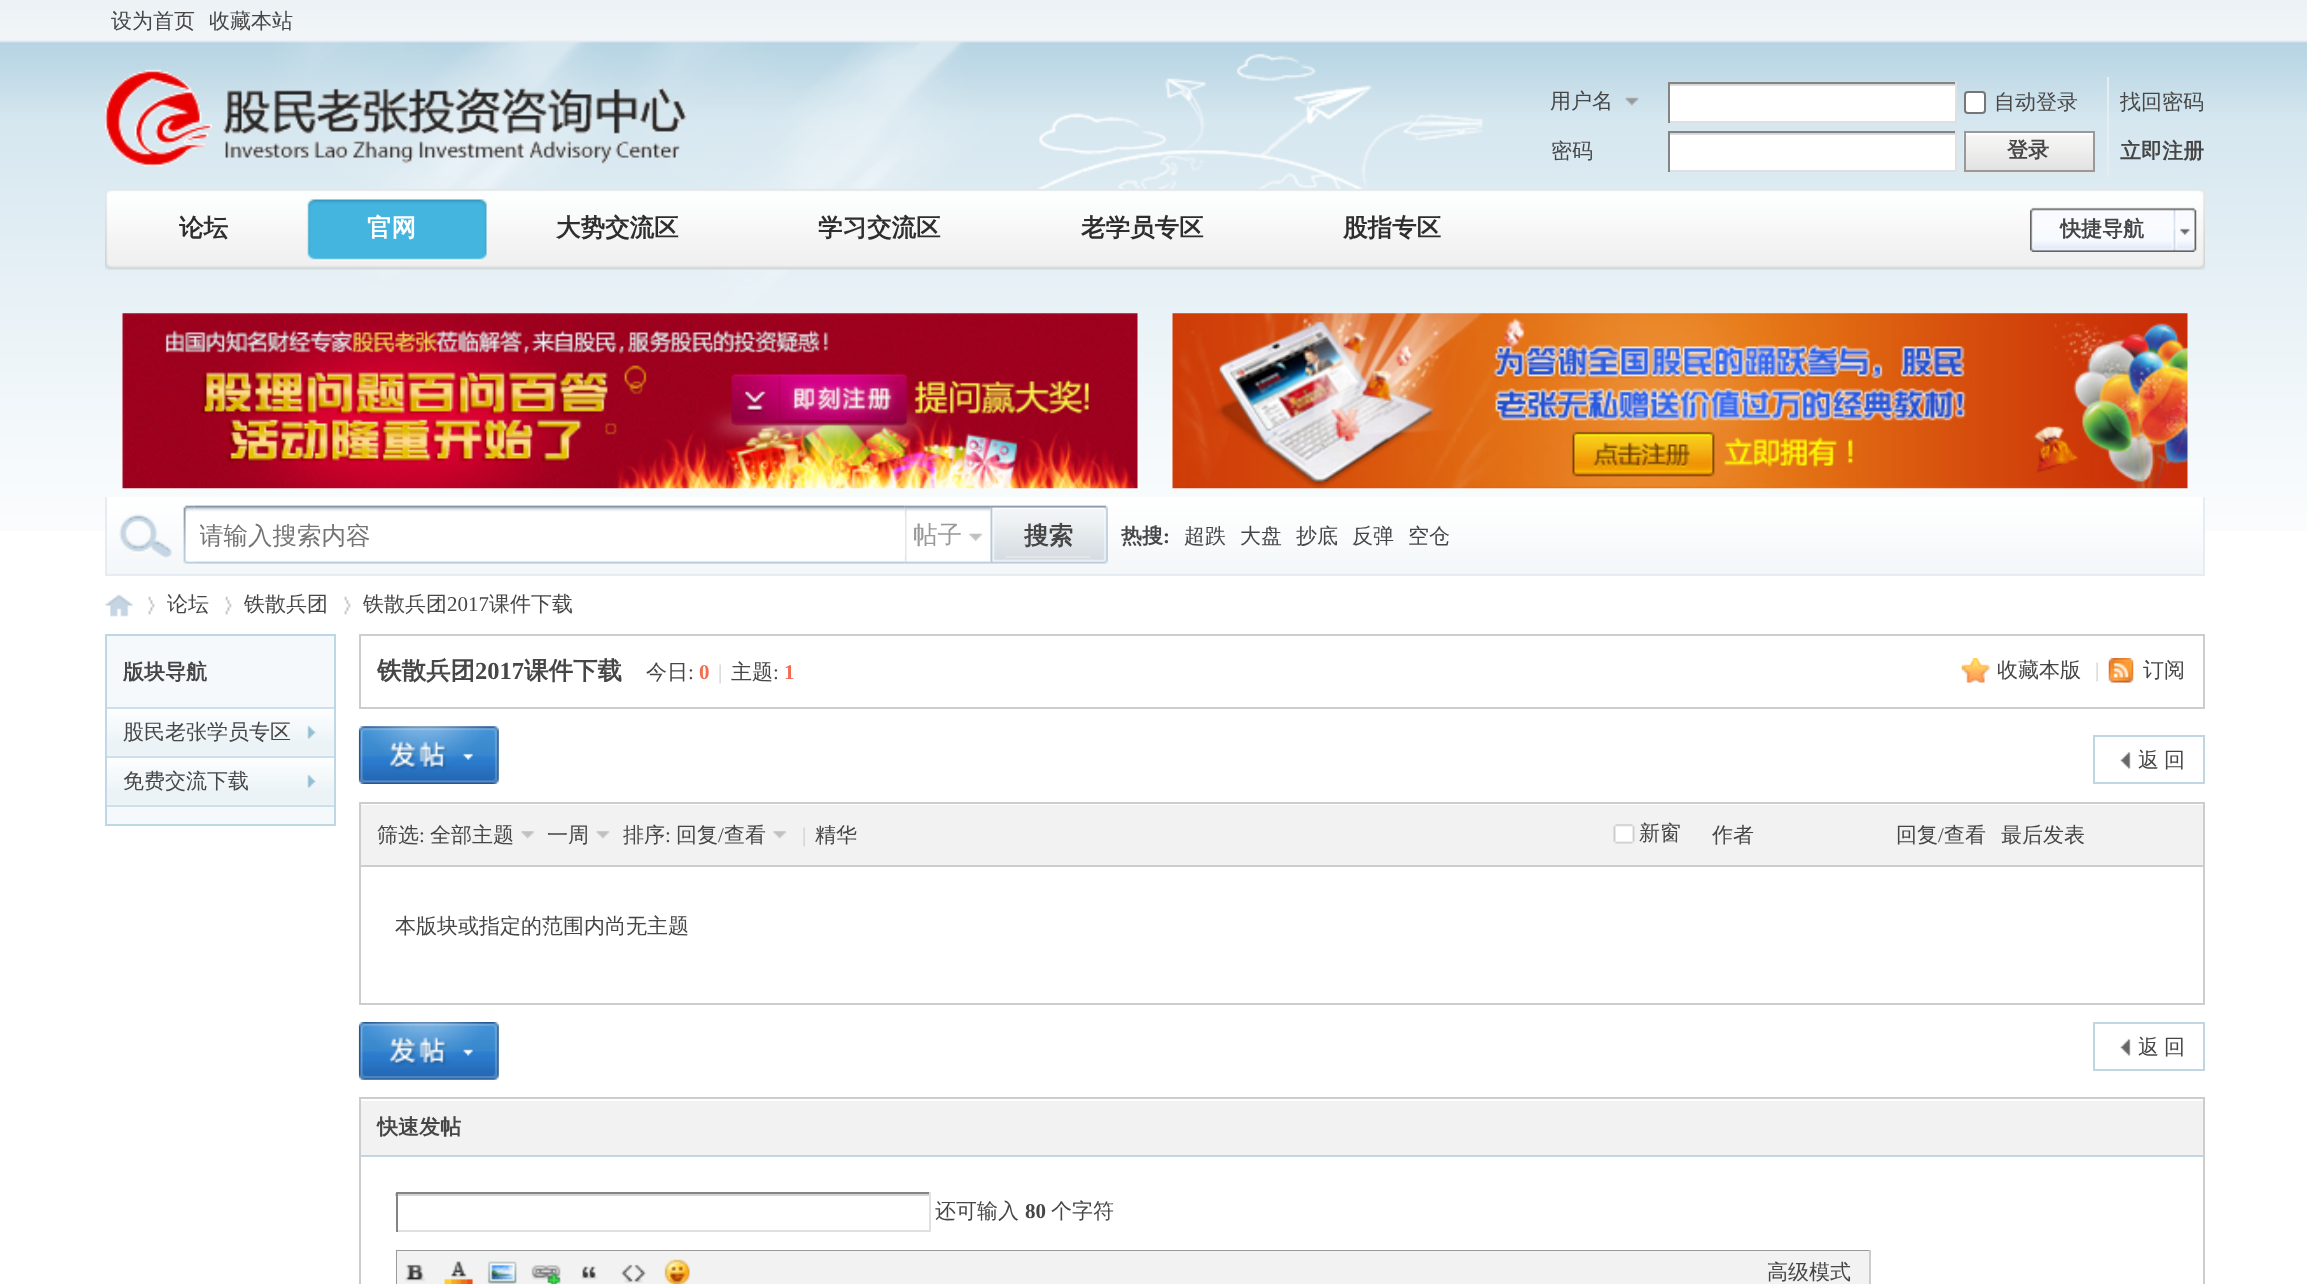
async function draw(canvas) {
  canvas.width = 2307
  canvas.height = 1284
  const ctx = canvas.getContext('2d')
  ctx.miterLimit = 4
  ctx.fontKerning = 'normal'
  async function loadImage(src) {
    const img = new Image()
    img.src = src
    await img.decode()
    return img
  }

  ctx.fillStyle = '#fff'
  ctx.fillRect(0, 0, 2307, 1284)
  ctx.drawImage(await loadImage('image0.png'), 0, 0, 2307, 531)
  ctx.font = '500 21px WenQuanYi Zen Hei'
  ctx.fillStyle = '#464646'
  ctx.fillText('设为首页', 111, 28)
  ctx.fillText('收藏本站', 209, 28)
  ctx.drawImage(await loadImage('image1.png'), 105, 69, 582, 98)
  ctx.drawImage(await loadImage('image2.png'), 1625, 97, 14, 9)
  ctx.fillText('用户名', 1550, 108)
  ctx.fillStyle = '#fff'
  ctx.fillRect(1670, 85, 285, 36)
  ctx.drawImage(await loadImage('image3.png'), 1667, 84, 288, 2)
  ctx.fillStyle = '#848484'
  ctx.fillRect(1668, 82, 289, 2)
  ctx.fillStyle = '#e0e0e0'
  ctx.fillRect(1955, 82, 2, 41)
  ctx.fillRect(1668, 121, 289, 2)
  ctx.fillStyle = '#848484'
  ctx.fillRect(1668, 82, 2, 41)
  ctx.fillStyle = '#fff'
  ctx.beginPath()
  ctx.roundRect(1965, 92, 20, 21, 3)
  ctx.fill()
  ctx.strokeStyle = '#767676'
  ctx.lineWidth = 2
  ctx.stroke()
  ctx.fillStyle = '#464646'
  ctx.fillText('自动登录', 1994, 109)
  ctx.fillText('找回密码', 2120, 109)
  ctx.fillText('密码', 1551, 158)
  ctx.fillStyle = '#fff'
  ctx.fillRect(1670, 134, 285, 36)
  ctx.drawImage(await loadImage('image4.png'), 1667, 133, 288, 2)
  ctx.fillStyle = '#848484'
  ctx.fillRect(1668, 131, 289, 2)
  ctx.fillStyle = '#e0e0e0'
  ctx.fillRect(1955, 131, 2, 41)
  ctx.fillRect(1668, 170, 289, 2)
  ctx.fillStyle = '#848484'
  ctx.fillRect(1668, 131, 2, 41)
  ctx.fillStyle = '#e5edf2'
  ctx.fillRect(2107, 77, 2, 100)
  ctx.fillStyle = '#e5e5e5'
  ctx.beginPath()
  ctx.moveTo(1964, 172)
  ctx.lineTo(1964, 173)
  ctx.lineTo(2095, 173)
  ctx.lineTo(2095, 133)
  ctx.lineTo(2095, 172)
  ctx.closePath()
  ctx.fill()
  ctx.drawImage(await loadImage('image5.png'), 1963, 133, 130, 39)
  ctx.strokeStyle = '#999'
  ctx.strokeRect(1965, 132, 129, 39)
  ctx.font = 'bold 21px WenQuanYi Zen Hei'
  ctx.fillStyle = '#464646'
  ctx.fillText('登录', 2007, 157)
  ctx.fillText('立即注册', 2120, 158)
  ctx.drawImage(await loadImage('image6.png'), 105, 189, 2100, 81)
  ctx.font = 'bold 24.5px WenQuanYi Zen Hei'
  ctx.fillStyle = '#2f2e2e'
  ctx.fillText('论坛', 179, 236)
  ctx.drawImage(await loadImage('image7.png'), 307, 199, 180, 62)
  ctx.fillStyle = '#fff'
  ctx.fillText('官网', 367, 236)
  ctx.fillStyle = '#2f2e2e'
  ctx.fillText('大势交流区', 556, 236)
  ctx.fillText('学习交流区', 818, 236)
  ctx.fillText('老学员专区', 1081, 236)
  ctx.fillText('股指专区', 1343, 236)
  ctx.drawImage(await loadImage('image8.png'), 2030, 207, 167, 45)
  ctx.font = 'bold 21px WenQuanYi Zen Hei'
  ctx.fillStyle = '#464646'
  ctx.fillText('快捷导航', 2060, 236)
  ctx.drawImage(await loadImage('image9.png'), 122, 313, 1016, 176)
  ctx.drawImage(await loadImage('image10.png'), 1172, 313, 1016, 176)
  ctx.drawImage(await loadImage('image11.png'), 107, 497, 2096, 77)
  ctx.fillStyle = '#e5edf2'
  ctx.fillRect(2203, 497, 2, 79)
  ctx.fillRect(105, 574, 2100, 2)
  ctx.fillRect(105, 497, 2, 79)
  ctx.drawImage(await loadImage('image12.png'), 119, 505, 76, 59)
  ctx.drawImage(await loadImage('image13.png'), 194, 505, 711, 59)
  ctx.drawImage(await loadImage('image14.png'), 904, 505, 87, 59)
  ctx.fillStyle = '#fff'
  ctx.fillRect(904, 515, 1, 43)
  ctx.save()
  ctx.beginPath()
  ctx.rect(200, 522, 700, 31)
  ctx.clip()
  ctx.font = '500 24.5px WenQuanYi Zen Hei'
  ctx.fillStyle = '#757575'
  ctx.fillText('请输入搜索内容', 199, 544)
  ctx.restore()
  ctx.drawImage(await loadImage('image15.png'), 969, 533, 14, 8)
  ctx.font = '500 24.5px WenQuanYi Zen Hei'
  ctx.fillStyle = '#999'
  ctx.fillText('帖子', 913, 543)
  ctx.drawImage(await loadImage('image16.png'), 990, 505, 118, 59)
  ctx.fillStyle = '#e5e5e5'
  ctx.beginPath()
  ctx.moveTo(1006, 518)
  ctx.lineTo(1006, 558)
  ctx.lineTo(1090, 558)
  ctx.lineTo(1090, 556)
  ctx.lineTo(1006, 556)
  ctx.closePath()
  ctx.fill()
  ctx.font = 'bold 24.5px WenQuanYi Zen Hei'
  ctx.fillStyle = '#464646'
  ctx.fillText('搜索', 1024, 544)
  ctx.font = 'bold 21px WenQuanYi Zen Hei'
  ctx.fillText('热搜', 1121, 543)
  ctx.font = 'bold 21px Liberation Serif'
  ctx.fillText(':', 1163, 543)
  ctx.font = '500 21px WenQuanYi Zen Hei'
  ctx.fillText('超跌', 1184, 543)
  ctx.fillText('大盘', 1240, 543)
  ctx.fillText('抄底', 1296, 543)
  ctx.fillText('反弹', 1352, 543)
  ctx.fillText('空仓', 1408, 543)
  ctx.drawImage(await loadImage('image17.png'), 105, 594, 28, 23)
  ctx.drawImage(await loadImage('image18.png'), 148, 596, 7, 19)
  ctx.fillText('论坛', 167, 611)
  ctx.drawImage(await loadImage('image18.png'), 225, 596, 7, 19)
  ctx.fillText('铁散兵团', 244, 611)
  ctx.drawImage(await loadImage('image18.png'), 344, 596, 7, 19)
  ctx.fillText('铁散兵团', 363, 611)
  ctx.font = '21px Liberation Serif'
  ctx.fillText('2017', 447, 611)
  ctx.font = '500 21px WenQuanYi Zen Hei'
  ctx.fillText('课件下载', 489, 611)
  ctx.fillStyle = '#f5f9fb'
  ctx.beginPath()
  ctx.rect(106, 635, 229, 190)
  ctx.fill()
  ctx.strokeStyle = '#bdd7e3'
  ctx.stroke()
  ctx.font = 'bold 21px WenQuanYi Zen Hei'
  ctx.fillStyle = '#464646'
  ctx.fillText('版块导航', 123, 679)
  ctx.drawImage(await loadImage('image19.png'), 106, 709, 229, 49)
  ctx.fillStyle = '#cce0eb'
  ctx.fillRect(107, 707, 227, 2)
  ctx.font = '500 21px WenQuanYi Zen Hei'
  ctx.fillStyle = '#464646'
  ctx.fillText('股民老张学员专区', 123, 739)
  ctx.drawImage(await loadImage('image19.png'), 106, 758, 229, 49)
  ctx.fillStyle = '#cce0eb'
  ctx.fillRect(107, 756, 227, 2)
  ctx.fillRect(107, 805, 227, 2)
  ctx.fillStyle = '#464646'
  ctx.fillText('免费交流下载', 123, 788)
  ctx.strokeStyle = '#cdcdcd'
  ctx.strokeRect(360, 635, 1844, 73)
  ctx.font = 'bold 24.5px WenQuanYi Zen Hei'
  ctx.fillText('铁散兵团', 377, 679)
  ctx.font = 'bold 24.5px Liberation Serif'
  ctx.fillText('2017', 475, 679)
  ctx.font = 'bold 24.5px WenQuanYi Zen Hei'
  ctx.fillText('课件下载', 524, 679)
  ctx.font = '500 21px WenQuanYi Zen Hei'
  ctx.fillText('今日', 646, 679)
  ctx.font = '21px Liberation Serif'
  ctx.fillText(':', 688, 679)
  ctx.font = 'bold 21px Liberation Serif'
  ctx.fillStyle = '#f26c4f'
  ctx.fillText('0', 699, 679)
  ctx.font = '21px Liberation Serif'
  ctx.fillStyle = '#ccc'
  ctx.fillText('|', 718, 679)
  ctx.font = '500 21px WenQuanYi Zen Hei'
  ctx.fillStyle = '#464646'
  ctx.fillText('主题', 731, 679)
  ctx.font = '21px Liberation Serif'
  ctx.fillText(':', 773, 679)
  ctx.font = 'bold 21px Liberation Serif'
  ctx.fillStyle = '#f26c4f'
  ctx.fillText('1', 784, 679)
  ctx.drawImage(await loadImage('image20.png'), 1961, 658, 29, 25)
  ctx.font = '500 21px WenQuanYi Zen Hei'
  ctx.fillStyle = '#464646'
  ctx.fillText('收藏本版', 1997, 677)
  ctx.font = '21px Liberation Serif'
  ctx.fillStyle = '#ccc'
  ctx.fillText('|', 2095, 677)
  ctx.drawImage(await loadImage('image21.png'), 2108, 658, 26, 25)
  ctx.font = '500 21px WenQuanYi Zen Hei'
  ctx.fillStyle = '#464646'
  ctx.fillText('订阅', 2143, 677)
  ctx.drawImage(await loadImage('image22.png'), 358, 726, 141, 58)
  ctx.drawImage(await loadImage('image23.png'), 2120, 752, 11, 17)
  ctx.strokeStyle = '#c2d5e3'
  ctx.strokeRect(2094, 736, 110, 47)
  ctx.fillText('返', 2138, 767)
  ctx.fillText('回', 2164, 767)
  ctx.strokeStyle = '#cdcdcd'
  ctx.strokeRect(360, 803, 1844, 201)
  ctx.fillStyle = '#f2f2f2'
  ctx.fillRect(361, 805, 1842, 60)
  ctx.fillStyle = '#cdcdcd'
  ctx.fillRect(361, 865, 1842, 2)
  ctx.fillStyle = '#464646'
  ctx.fillText('筛选', 377, 842)
  ctx.font = '21px Liberation Serif'
  ctx.fillText(':', 419, 842)
  ctx.font = '500 21px WenQuanYi Zen Hei'
  ctx.fillText('全部主题', 430, 842)
  ctx.drawImage(await loadImage('image24.png'), 521, 831, 14, 8)
  ctx.fillText('一周', 547, 842)
  ctx.drawImage(await loadImage('image25.png'), 596, 831, 14, 8)
  ctx.fillText('排序', 623, 842)
  ctx.font = '21px Liberation Serif'
  ctx.fillText(':', 665, 842)
  ctx.font = '500 21px WenQuanYi Zen Hei'
  ctx.fillText('回复', 676, 842)
  ctx.font = '21px Liberation Serif'
  ctx.fillText('/', 718, 842)
  ctx.font = '500 21px WenQuanYi Zen Hei'
  ctx.fillText('查看', 724, 842)
  ctx.drawImage(await loadImage('image24.png'), 773, 831, 14, 8)
  ctx.font = '21px Liberation Serif'
  ctx.fillStyle = '#ccc'
  ctx.fillText('|', 802, 842)
  ctx.font = '500 21px WenQuanYi Zen Hei'
  ctx.fillStyle = '#464646'
  ctx.fillText('精华', 815, 842)
  ctx.drawImage(await loadImage('image26.png'), 1613, 824, 22, 20)
  ctx.fillText('新窗', 1639, 840)
  ctx.fillText('作者', 1712, 842)
  ctx.fillText('回复', 1896, 842)
  ctx.font = '21px Liberation Serif'
  ctx.fillText('/', 1938, 842)
  ctx.font = '500 21px WenQuanYi Zen Hei'
  ctx.fillText('查看', 1944, 842)
  ctx.fillText('最后发表', 2001, 842)
  ctx.fillText('本版块或指定的范围内尚无主题', 395, 933)
  ctx.drawImage(await loadImage('image27.png'), 358, 1022, 141, 58)
  ctx.drawImage(await loadImage('image23.png'), 2120, 1039, 11, 17)
  ctx.strokeStyle = '#c2d5e3'
  ctx.strokeRect(2094, 1023, 110, 47)
  ctx.fillText('返', 2138, 1054)
  ctx.fillText('回', 2164, 1054)
  ctx.strokeStyle = '#cdcdcd'
  ctx.strokeRect(360, 1098, 1844, 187)
  ctx.fillStyle = '#f2f2f2'
  ctx.fillRect(361, 1101, 1842, 54)
  ctx.fillStyle = '#c2d5e3'
  ctx.fillRect(361, 1155, 1842, 2)
  ctx.font = 'bold 21px WenQuanYi Zen Hei'
  ctx.fillStyle = '#464646'
  ctx.fillText('快速发帖', 377, 1134)
  ctx.fillStyle = '#d4d4d4'
  ctx.fillRect(395, 1193, 536, 3)
  ctx.fillStyle = '#848484'
  ctx.fillRect(396, 1192, 535, 2)
  ctx.fillStyle = '#e0e0e0'
  ctx.fillRect(929, 1192, 2, 40)
  ctx.fillRect(396, 1230, 535, 2)
  ctx.fillStyle = '#848484'
  ctx.fillRect(396, 1192, 2, 40)
  ctx.font = '500 21px WenQuanYi Zen Hei'
  ctx.fillStyle = '#464646'
  ctx.fillText('还可输入', 935, 1218)
  ctx.font = 'bold 21px Liberation Serif'
  ctx.fillText('80', 1025, 1218)
  ctx.font = '500 21px WenQuanYi Zen Hei'
  ctx.fillText('个字符', 1051, 1218)
  ctx.fillStyle = '#999'
  ctx.fillRect(396, 1250, 1475, 1)
  ctx.fillStyle = '#ccc'
  ctx.fillRect(1869, 1250, 2, 34)
  ctx.fillStyle = '#999'
  ctx.fillRect(396, 1250, 2, 34)
  ctx.fillStyle = '#f2f2f2'
  ctx.fillRect(397, 1251, 1472, 33)
  ctx.drawImage(await loadImage('image28.png'), 405, 1264, 21, 18)
  ctx.drawImage(await loadImage('image29.png'), 444, 1261, 29, 23)
  ctx.drawImage(await loadImage('image30.png'), 487, 1261, 30, 23)
  ctx.drawImage(await loadImage('image31.png'), 531, 1265, 31, 19)
  ctx.drawImage(await loadImage('image32.png'), 580, 1266, 18, 14)
  ctx.drawImage(await loadImage('image33.png'), 621, 1264, 26, 19)
  ctx.drawImage(await loadImage('image34.png'), 664, 1259, 26, 25)
  ctx.fillStyle = '#464646'
  ctx.fillText('高级模式', 1767, 1279)
}

draw(document.querySelector('canvas'))
